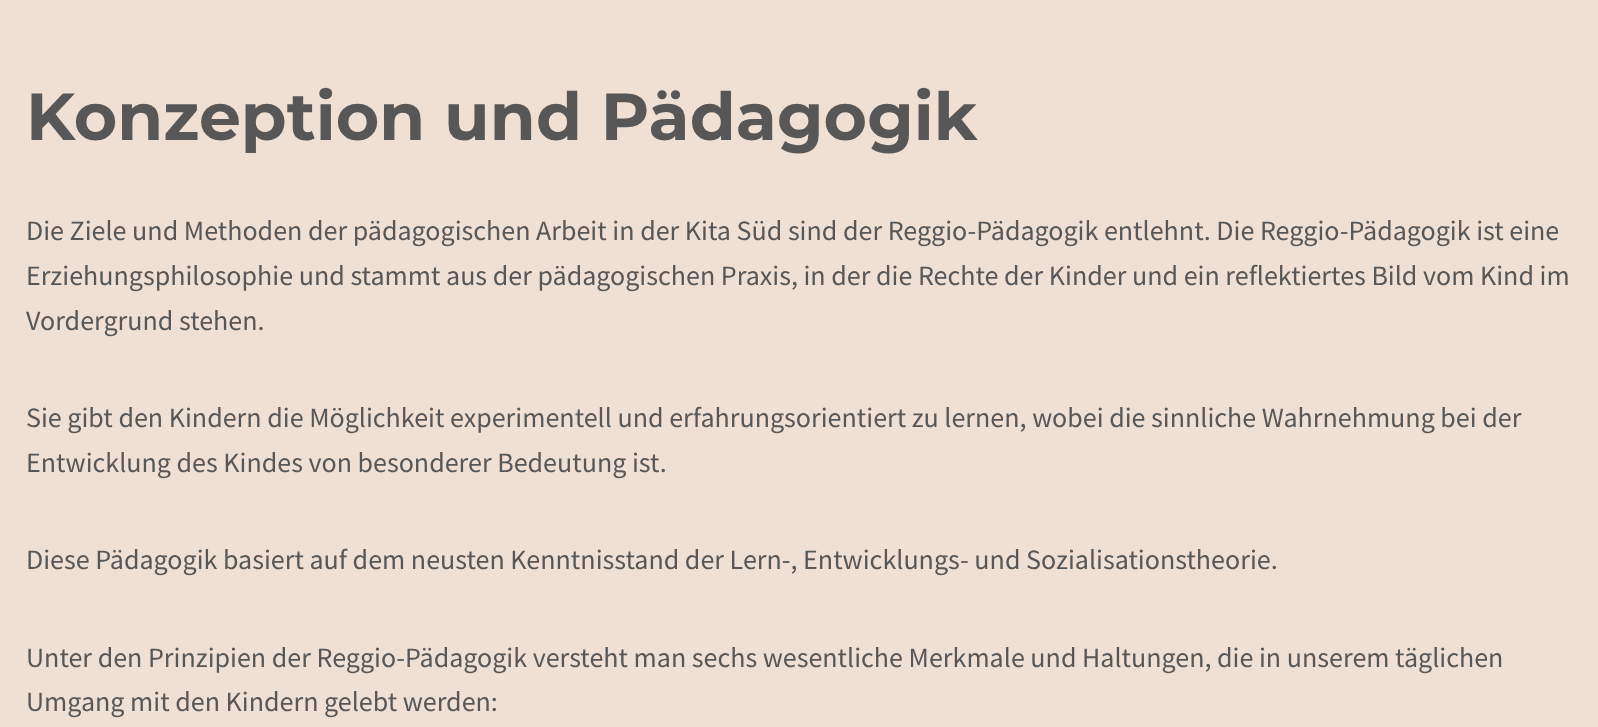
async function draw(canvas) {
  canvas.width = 1598
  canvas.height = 727
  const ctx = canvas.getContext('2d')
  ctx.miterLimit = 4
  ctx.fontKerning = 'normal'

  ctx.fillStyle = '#f0e0d3'
  ctx.fillRect(0, 0, 1598, 727)
  ctx.font = '100 66.5px Montserrat'
  ctx.fillStyle = '#575757'
  ctx.fillText('Konzeption und Pädagogik', 26, 140)
  ctx.font = '28px Source Sans Pro'
  ctx.fillText('Die Ziele und Methoden der pädagogischen Arbeit in der Kita Süd sind der Reggio-Pädagogik entlehnt. Die Reggio-Pädagogik ist eine', 26, 240)
  ctx.fillText('Erziehungsphilosophie und stammt aus der pädagogischen Praxis, in der die Rechte der Kinder und ein reflektiertes Bild vom Kind im', 26, 285)
  ctx.fillText('Vordergrund stehen.', 26, 330)
  ctx.fillText('Sie gibt den Kindern die Möglichkeit experimentell und erfahrungsorientiert zu lernen, wobei die sinnliche Wahrnehmung bei der', 26, 427)
  ctx.fillText('Entwicklung des Kindes von besonderer Bedeutung ist.', 26, 472)
  ctx.fillText('Diese Pädagogik basiert auf dem neusten Kenntnisstand der Lern-, Entwicklungs- und Sozialisationstheorie.', 26, 569)
  ctx.fillText('Unter den Prinzipien der Reggio-Pädagogik versteht man sechs wesentliche Merkmale und Haltungen, die in unserem täglichen', 26, 667)
  ctx.fillText('Umgang mit den Kindern gelebt werden:', 26, 711)
}

draw(document.querySelector('canvas'))
